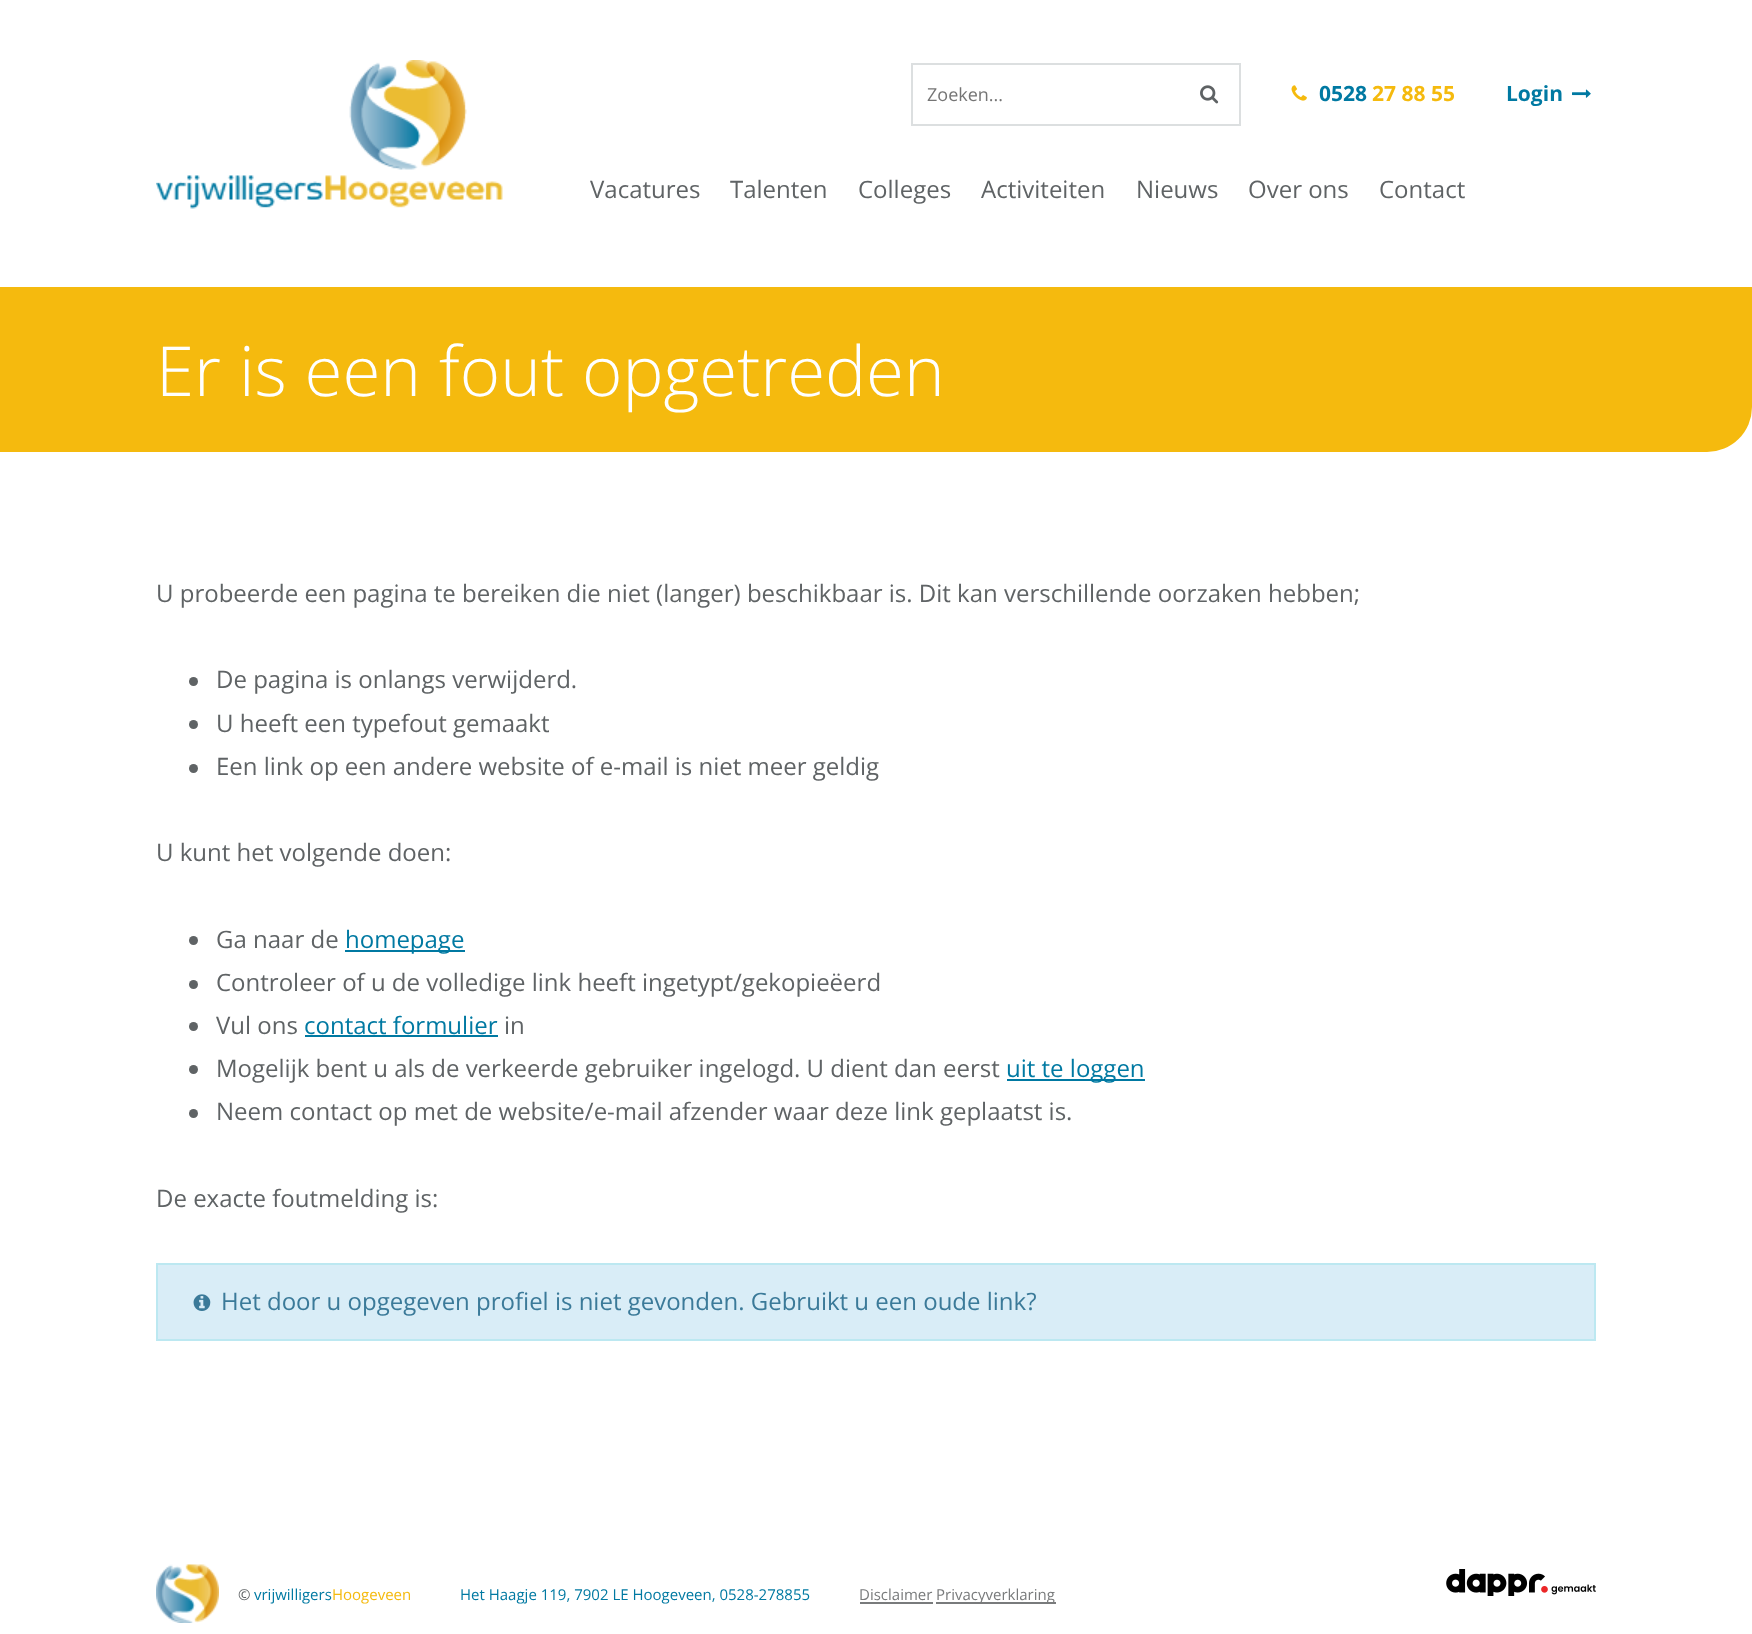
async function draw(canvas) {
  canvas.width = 1752
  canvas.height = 1634
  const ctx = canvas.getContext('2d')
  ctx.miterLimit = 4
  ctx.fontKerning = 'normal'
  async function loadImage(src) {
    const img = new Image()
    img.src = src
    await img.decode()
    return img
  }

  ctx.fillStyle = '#fff'
  ctx.fillRect(0, 0, 1752, 1634)
  ctx.drawImage(await loadImage('image0.png'), 156, 60, 347, 149)
  ctx.strokeStyle = '#dcdfe0'
  ctx.lineWidth = 2
  ctx.strokeRect(912, 64, 328, 61)
  ctx.font = '18px Open Sans'
  ctx.fillStyle = '#757575'
  ctx.fillText('Zoeken...', 927, 101)
  ctx.drawImage(await loadImage('image1.png'), 1200, 85, 19, 19)
  ctx.drawImage(await loadImage('image2.png'), 1291, 85, 16, 16)
  ctx.font = 'bold 21px Open Sans'
  ctx.fillStyle = '#0079a2'
  ctx.fillText('0528', 1319, 101)
  ctx.fillStyle = '#f5ba0e'
  ctx.fillText('27 88 55', 1372, 101)
  ctx.fillStyle = '#0079a2'
  ctx.fillText('Login', 1506, 101)
  ctx.drawImage(await loadImage('image3.png'), 1572, 89, 19, 9)
  ctx.font = '24px Open Sans'
  ctx.fillStyle = '#5f6365'
  ctx.fillText('Vacatures', 590, 198)
  ctx.fillText('Talenten', 730, 198)
  ctx.fillText('Colleges', 858, 198)
  ctx.fillText('Activiteiten', 981, 198)
  ctx.fillText('Nieuws', 1136, 198)
  ctx.fillText('Over ons', 1248, 198)
  ctx.fillText('Contact', 1379, 198)
  ctx.fillStyle = '#f5ba0e'
  ctx.beginPath()
  ctx.roundRect(0, 287, 1752, 165, [0, 0, 45, 0])
  ctx.fill()
  ctx.font = '300 69px Open Sans'
  ctx.fillStyle = '#fff'
  ctx.fillText('Er is een fout opgetreden', 156, 396)
  ctx.font = '24px Open Sans'
  ctx.fillStyle = '#5f6365'
  ctx.fillText('U probeerde een pagina te bereiken die niet (langer) beschikbaar is. Dit kan verschillende oorzaken hebben;', 156, 602)
  ctx.beginPath()
  ctx.arc(193.5, 681.5, 4.5, 0, 2 * Math.PI)
  ctx.fill()
  ctx.fillText('De pagina is onlangs verwijderd.', 216, 688)
  ctx.beginPath()
  ctx.arc(193.5, 724.5, 4.5, 0, 2 * Math.PI)
  ctx.fill()
  ctx.fillText('U heeft een typefout gemaakt', 216, 732)
  ctx.beginPath()
  ctx.arc(193.5, 768.5, 4.5, 0, 2 * Math.PI)
  ctx.fill()
  ctx.fillText('Een link op een andere website of e-mail is niet meer geldig', 216, 775)
  ctx.fillText('U kunt het volgende doen:', 156, 861)
  ctx.beginPath()
  ctx.arc(193.5, 940.5, 4.5, 0, 2 * Math.PI)
  ctx.fill()
  ctx.fillText('Ga naar de', 216, 948)
  ctx.fillStyle = '#0079a2'
  ctx.fillRect(345, 950, 120, 2)
  ctx.fillText('homepage', 345, 948)
  ctx.fillStyle = '#5f6365'
  ctx.beginPath()
  ctx.arc(193.5, 984.5, 4.5, 0, 2 * Math.PI)
  ctx.fill()
  ctx.fillText('Controleer of u de volledige link heeft ingetypt/gekopieëerd', 216, 991)
  ctx.beginPath()
  ctx.arc(193.5, 1026.5, 4.5, 0, 2 * Math.PI)
  ctx.fill()
  ctx.fillText('Vul ons', 216, 1034)
  ctx.fillStyle = '#0079a2'
  ctx.fillText('contact formulier', 304, 1034)
  ctx.fillRect(305, 1035, 193, 2)
  ctx.fillStyle = '#5f6365'
  ctx.fillText('in', 504, 1034)
  ctx.beginPath()
  ctx.arc(193.5, 1069.5, 4.5, 0, 2 * Math.PI)
  ctx.fill()
  ctx.fillText('Mogelijk bent u als de verkeerde gebruiker ingelogd. U dient dan eerst', 216, 1077)
  ctx.fillStyle = '#0079a2'
  ctx.fillRect(1007, 1079, 138, 2)
  ctx.fillText('uit te loggen', 1006, 1077)
  ctx.fillStyle = '#5f6365'
  ctx.beginPath()
  ctx.arc(193.5, 1113.5, 4.5, 0, 2 * Math.PI)
  ctx.fill()
  ctx.fillText('Neem contact op met de website/e-mail afzender waar deze link geplaatst is.', 216, 1120)
  ctx.fillText('De exacte foutmelding is:', 156, 1207)
  ctx.fillStyle = '#d9edf7'
  ctx.beginPath()
  ctx.rect(157, 1264, 1438, 76)
  ctx.fill()
  ctx.strokeStyle = '#bce8f1'
  ctx.stroke()
  ctx.drawImage(await loadImage('image4.png'), 193, 1294, 18, 17)
  ctx.fillStyle = '#3b7a99'
  ctx.fillText('Het door u opgegeven profiel is niet gevonden. Gebruikt u een oude link?', 221, 1310)
  ctx.drawImage(await loadImage('image5.png'), 156, 1564, 63, 59)
  ctx.font = '15px Open Sans'
  ctx.fillStyle = '#5f6365'
  ctx.fillText('©', 238, 1600)
  ctx.fillStyle = '#0079a2'
  ctx.fillText('vrijwilligers', 254, 1600)
  ctx.fillStyle = '#f5ba0e'
  ctx.fillText('Hoogeveen', 332, 1600)
  ctx.fillStyle = '#0079a2'
  ctx.fillText('Het Haagje 119, 7902 LE Hoogeveen, 0528-278855', 460, 1600)
  ctx.fillStyle = '#797b7c'
  ctx.fillText('Disclaimer', 859, 1600)
  ctx.fillRect(860, 1602, 73, 2)
  ctx.fillRect(936, 1602, 120, 2)
  ctx.fillText('Privacyverklaring', 936, 1600)
  ctx.drawImage(await loadImage('image6.png'), 1446, 1569, 150, 27)
}

draw(document.querySelector('canvas'))
